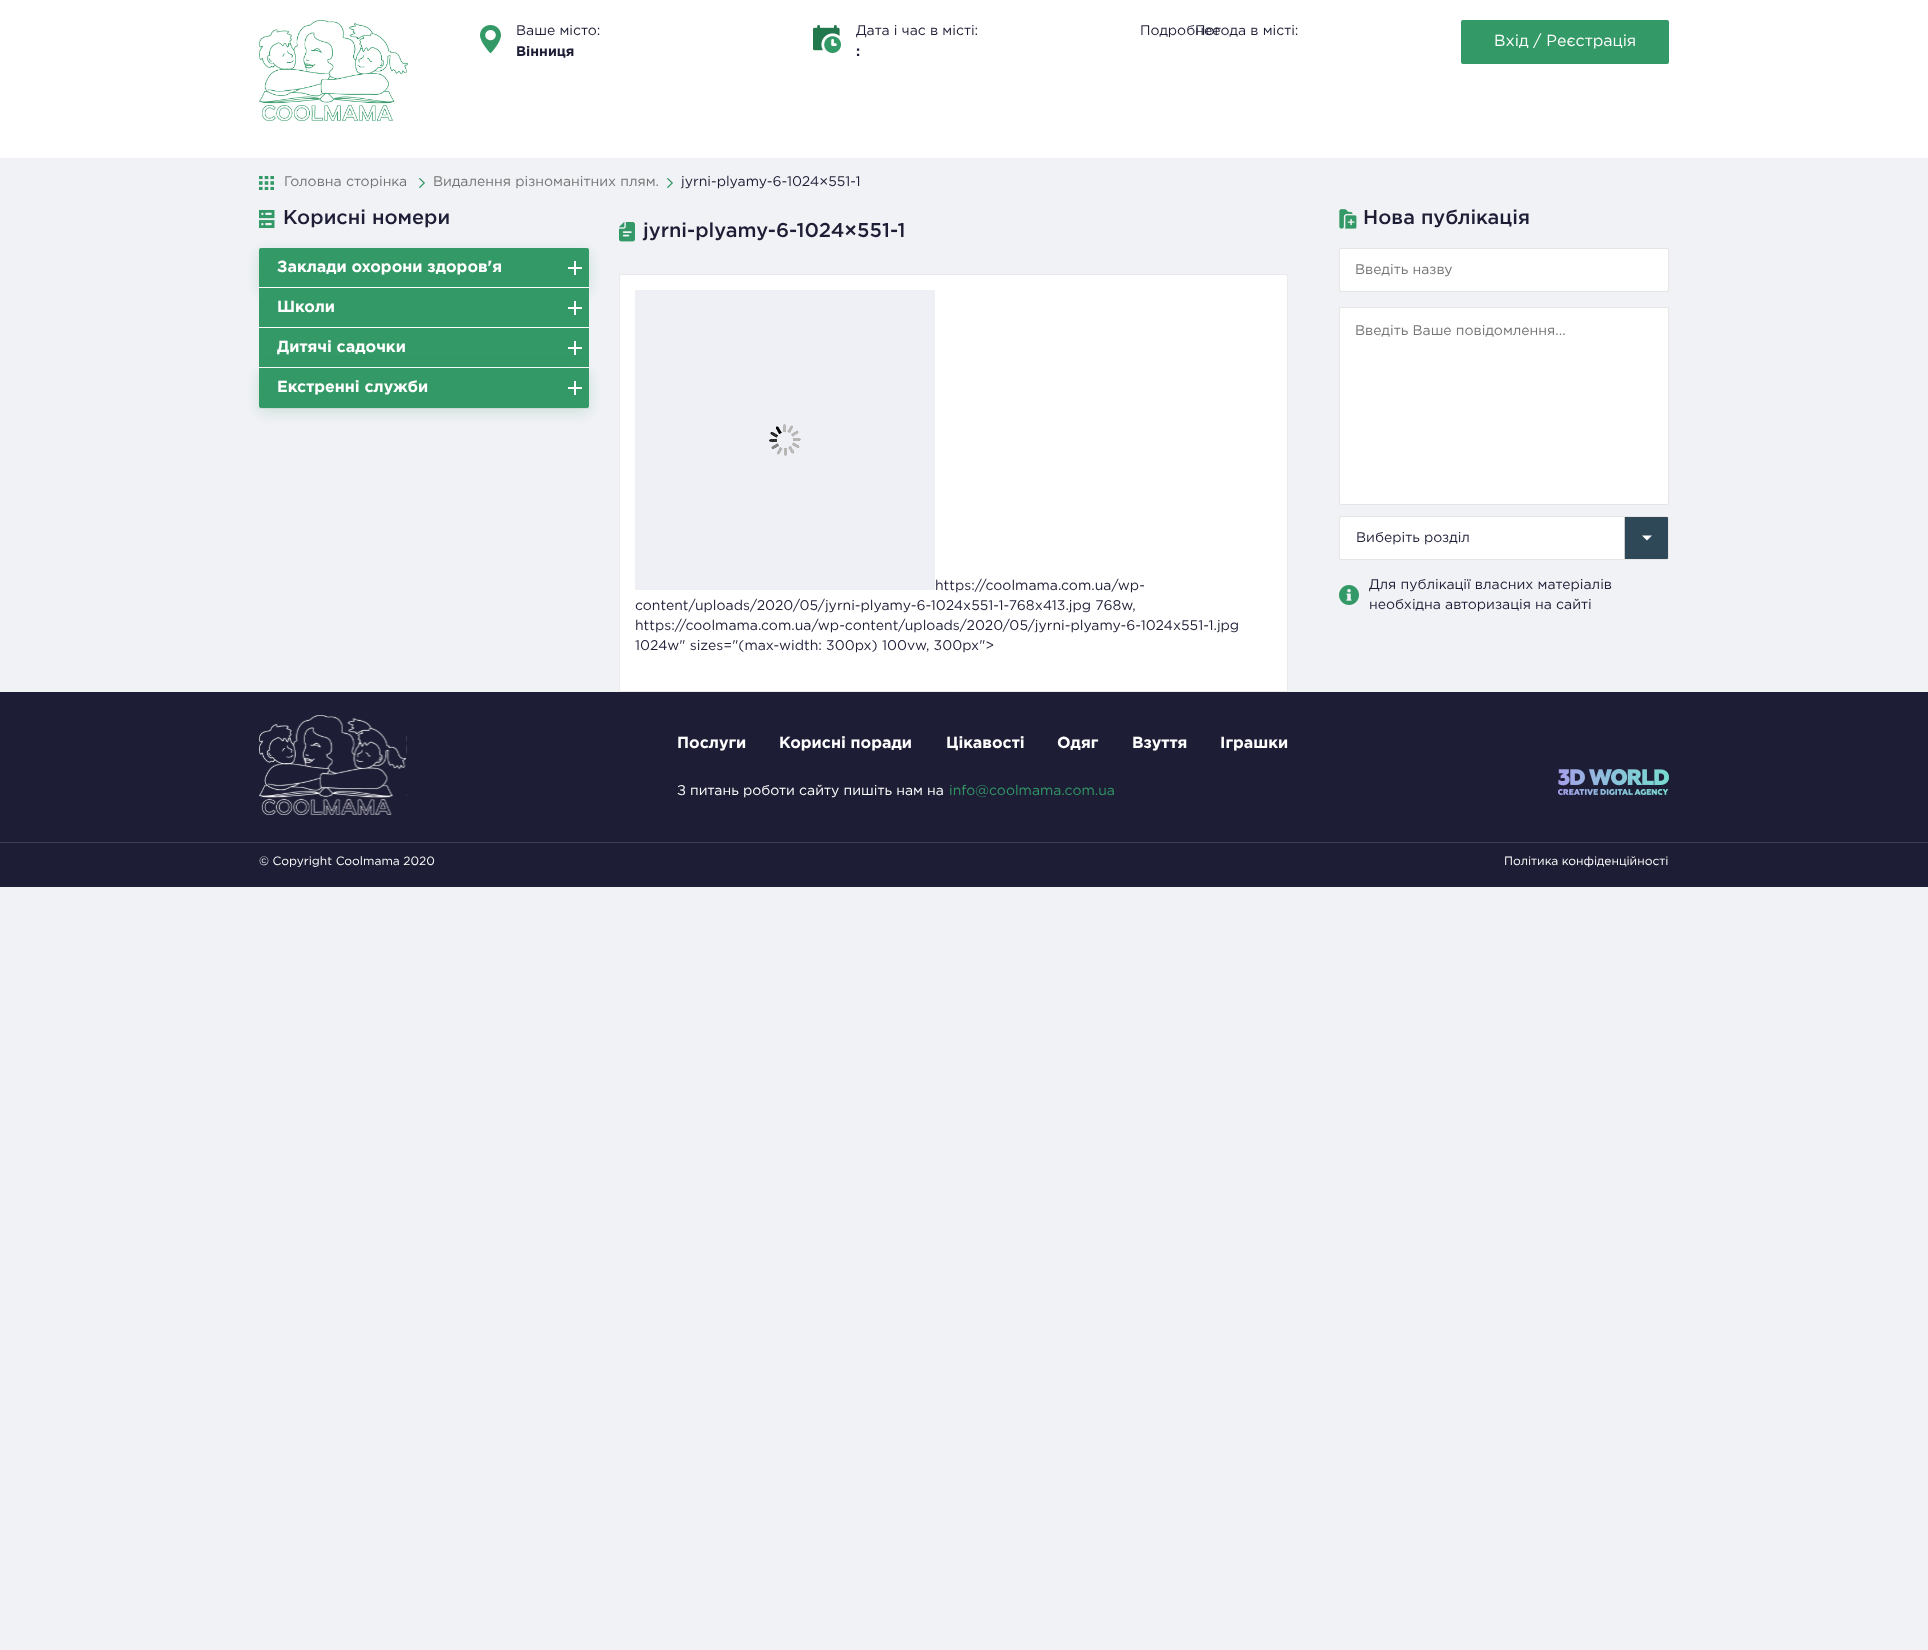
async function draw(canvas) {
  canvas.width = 1928
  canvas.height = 1650
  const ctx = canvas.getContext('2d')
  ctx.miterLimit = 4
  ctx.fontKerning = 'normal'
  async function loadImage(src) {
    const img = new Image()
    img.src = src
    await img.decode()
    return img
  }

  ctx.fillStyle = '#f1f2f6'
  ctx.fillRect(0, 0, 1928, 1650)
  ctx.fillStyle = '#fff'
  ctx.fillRect(0, 0, 1928, 158)
  ctx.drawImage(await loadImage('image0.png'), 259, 20, 149, 101)
  ctx.drawImage(await loadImage('image1.png'), 480, 25, 21, 28)
  ctx.font = '14px Gotham'
  ctx.fillStyle = '#1d1d35'
  ctx.fillText('Ваше місто:', 516, 35)
  ctx.save()
  ctx.beginPath()
  ctx.rect(516, 46, 155, 13)
  ctx.clip()
  ctx.font = 'bold 14px Gotham'
  ctx.fillText('Вінниця', 516, 56)
  ctx.restore()
  ctx.drawImage(await loadImage('image2.png'), 813, 25, 28, 28)
  ctx.fillText('Дата і час в місті:', 856, 35)
  ctx.font = 'bold 14px Gotham'
  ctx.fillText(':', 856, 56)
  ctx.font = '14px Gotham'
  ctx.fillText('Погода в місті:', 1195, 35)
  ctx.fillText('Подробнее', 1140, 35)
  ctx.fillStyle = '#396'
  ctx.beginPath()
  ctx.roundRect(1461, 20, 208, 44, 2)
  ctx.fill()
  ctx.font = '16px Gotham'
  ctx.fillStyle = '#fff'
  ctx.fillText('Вхід / Реєстрація', 1494, 46)
  ctx.drawImage(await loadImage('image3.png'), 259, 176, 15, 14)
  ctx.font = '14px Gotham'
  ctx.fillStyle = '#747474'
  ctx.fillText('Головна сторінка', 284, 186)
  ctx.drawImage(await loadImage('image4.png'), 419, 178, 6, 10)
  ctx.fillText('Видалення різноманітних плям.', 433, 186)
  ctx.drawImage(await loadImage('image4.png'), 667, 178, 6, 10)
  ctx.fillStyle = '#1d1d35'
  ctx.fillText('jyrni-plyamy-6-1024×551-1', 681, 186)
  ctx.drawImage(await loadImage('image5.png'), 259, 210, 16, 18)
  ctx.font = '500 20px Gotham'
  ctx.fillText('Корисні номери', 283, 224)
  ctx.fillStyle = '#32996733'
  ctx.filter = 'blur(7.5px)'
  ctx.beginPath()
  ctx.roundRect(259, 252, 330, 40, 2)
  ctx.fill()
  ctx.filter = 'none'
  ctx.fillStyle = '#396'
  ctx.beginPath()
  ctx.roundRect(259, 248, 330, 40, [2, 2, 0, 0])
  ctx.fill()
  ctx.fillStyle = '#fff'
  ctx.fillRect(259, 287, 330, 1)
  ctx.font = 'bold 16px Gotham'
  ctx.fillText('Заклади охорони здоров\'я', 277, 272)
  ctx.fillRect(568, 267, 14, 2)
  ctx.fillRect(574, 261, 2, 14)
  ctx.fillStyle = '#396'
  ctx.fillRect(259, 288, 330, 39)
  ctx.fillStyle = '#fff'
  ctx.fillRect(259, 327, 330, 1)
  ctx.fillText('Школи', 277, 312)
  ctx.fillRect(568, 307, 14, 2)
  ctx.fillRect(574, 301, 2, 14)
  ctx.fillStyle = '#396'
  ctx.fillRect(259, 328, 330, 39)
  ctx.fillStyle = '#fff'
  ctx.fillRect(259, 367, 330, 1)
  ctx.fillText('Дитячі садочки', 277, 352)
  ctx.fillRect(568, 347, 14, 2)
  ctx.fillRect(574, 341, 2, 14)
  ctx.fillStyle = '#e5e5e5'
  ctx.fillRect(260, 408, 329, 1)
  ctx.beginPath()
  ctx.arc(259.5, 408.5, 0.5, 0, 2 * Math.PI)
  ctx.fill()
  ctx.fillStyle = '#32996733'
  ctx.filter = 'blur(7.5px)'
  ctx.beginPath()
  ctx.roundRect(259, 372, 330, 40, 2)
  ctx.fill()
  ctx.filter = 'none'
  ctx.fillStyle = '#396'
  ctx.beginPath()
  ctx.roundRect(259, 368, 330, 40, [0, 0, 2, 2])
  ctx.fill()
  ctx.fillStyle = '#fff'
  ctx.fillText('Екстренні служби', 277, 392)
  ctx.fillRect(568, 387, 14, 2)
  ctx.fillRect(574, 381, 2, 14)
  ctx.drawImage(await loadImage('image6.png'), 619, 222, 16, 20)
  ctx.font = '500 20px Gotham'
  ctx.fillStyle = '#1d1d35'
  ctx.fillText('jyrni-plyamy-6-1024×551-1', 643, 237)
  ctx.fillStyle = '#fff'
  ctx.beginPath()
  ctx.roundRect(619.5, 274.5, 668, 417, [1.5, 1.5, 0, 0])
  ctx.fill()
  ctx.strokeStyle = '#eaeaea'
  ctx.stroke()
  ctx.fillStyle = '#eef0f6'
  ctx.fillRect(635, 290, 300, 300)
  ctx.drawImage(await loadImage('image7.png'), 769, 424, 32, 32)
  ctx.font = '14px Gotham'
  ctx.fillStyle = '#1d1d35'
  ctx.fillText('https://coolmama.com.ua/wp-', 935, 590)
  ctx.fillText('content/uploads/2020/05/jyrni-plyamy-6-1024x551-1-768x413.jpg 768w,', 635, 610)
  ctx.fillText('https://coolmama.com.ua/wp-content/uploads/2020/05/jyrni-plyamy-6-1024x551-1.jpg', 635, 630)
  ctx.fillText('1024w" sizes="(max-width: 300px) 100vw, 300px">', 635, 650)
  ctx.drawImage(await loadImage('image8.png'), 1339, 209, 18, 20)
  ctx.font = '500 20px Gotham'
  ctx.fillText('Нова публікація', 1363, 224)
  ctx.fillStyle = '#fff'
  ctx.beginPath()
  ctx.roundRect(1339.5, 248.5, 329, 43, 1.5)
  ctx.fill()
  ctx.strokeStyle = '#e5e5e5'
  ctx.stroke()
  ctx.font = '14px Gotham'
  ctx.fillStyle = '#747474'
  ctx.fillText('Введіть назву', 1355, 274)
  ctx.fillStyle = '#fff'
  ctx.beginPath()
  ctx.roundRect(1339.5, 307.5, 329, 197, 1.5)
  ctx.fill()
  ctx.stroke()
  ctx.fillStyle = '#747474'
  ctx.fillText('Введіть Ваше повідомлення...', 1355, 335)
  ctx.fillStyle = '#fff'
  ctx.beginPath()
  ctx.roundRect(1339.5, 516.5, 329, 43, 1.5)
  ctx.fill()
  ctx.stroke()
  ctx.fillStyle = '#1d1d35'
  ctx.fillText('Виберіть розділ', 1356, 542)
  ctx.fillStyle = '#2f4858'
  ctx.beginPath()
  ctx.roundRect(1624, 517, 44, 42, [0, 1, 1, 0])
  ctx.fill()
  ctx.fillStyle = '#ccc'
  ctx.fillRect(1624, 517, 1, 42)
  ctx.fillStyle = '#fff'
  ctx.beginPath()
  ctx.moveTo(1642, 535.5)
  ctx.lineTo(1652, 535.5)
  ctx.lineTo(1647, 540.5)
  ctx.closePath()
  ctx.fill()
  ctx.drawImage(await loadImage('image9.png'), 1339, 585, 20, 20)
  ctx.fillStyle = '#1d1d35'
  ctx.fillText('Для публікації власних матеріалів', 1369, 589)
  ctx.fillText('необхідна авторизація на сайті', 1369, 609)
  ctx.fillRect(0, 692, 1928, 195)
  ctx.drawImage(await loadImage('image10.png'), 259, 715, 148, 100)
  ctx.font = 'bold 16px Gotham'
  ctx.fillStyle = '#fff'
  ctx.fillText('Послуги', 677, 748)
  ctx.fillText('Корисні поради', 779, 748)
  ctx.fillText('Цікавості', 946, 748)
  ctx.fillText('Одяг', 1057, 748)
  ctx.fillText('Взуття', 1132, 748)
  ctx.fillText('Іграшки', 1220, 748)
  ctx.font = '14px Gotham'
  ctx.fillText('З питань роботи сайту пишіть нам на', 677, 795)
  ctx.fillStyle = '#396'
  ctx.fillText('info@coolmama.com.ua', 949, 795)
  ctx.drawImage(await loadImage('image11.png'), 1558, 769, 111, 26)
  ctx.fillStyle = '#3f3f53'
  ctx.fillRect(0, 842, 1928, 1)
  ctx.font = '12px Gotham'
  ctx.fillStyle = '#fff'
  ctx.fillText('© Copyright Coolmama 2020', 259, 865)
  ctx.fillText('Політика конфіденційності', 1504, 865)
}

draw(document.querySelector('canvas'))
